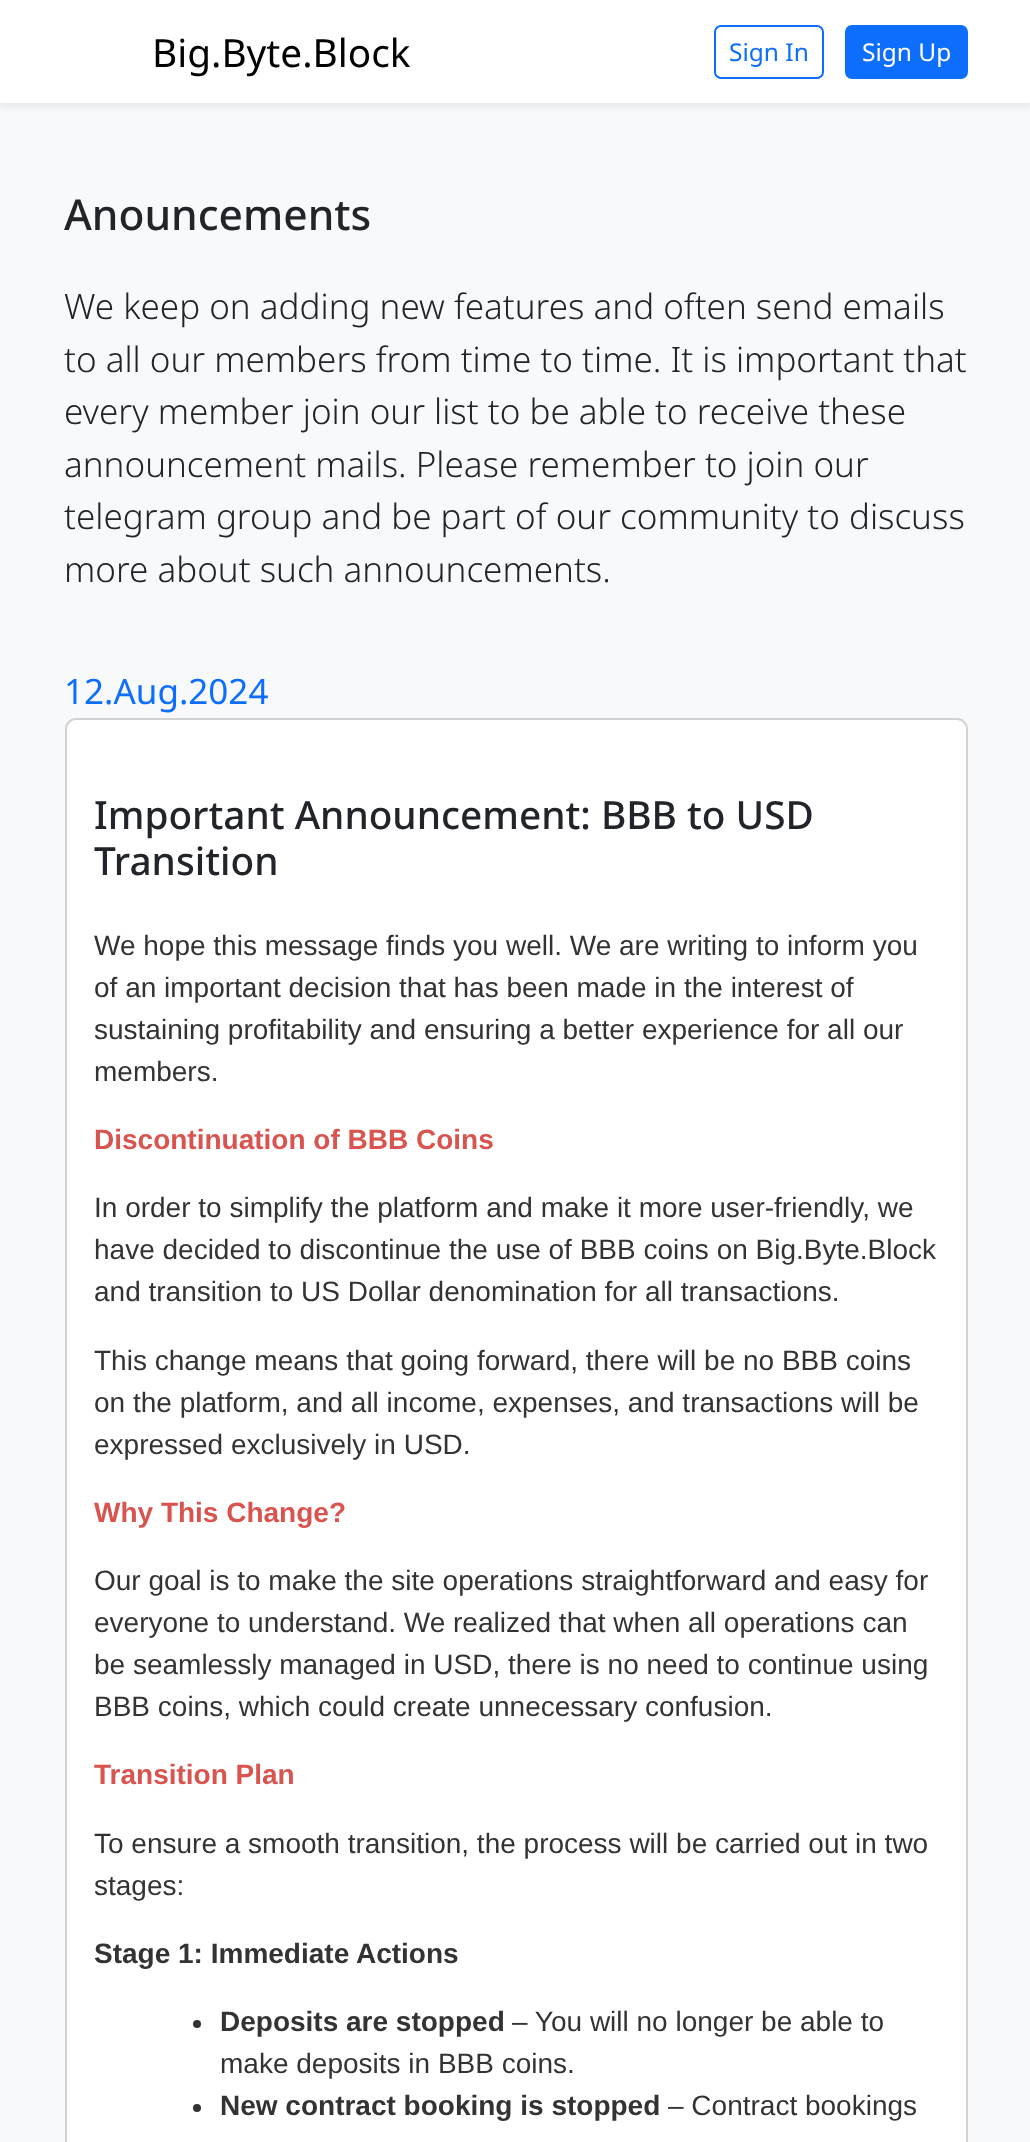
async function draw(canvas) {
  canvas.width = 1030
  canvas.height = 2142
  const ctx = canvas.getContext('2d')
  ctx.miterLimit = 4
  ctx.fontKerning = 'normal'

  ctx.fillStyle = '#f8f9fa'
  ctx.fillRect(0, 0, 1030, 2142)
  ctx.fillStyle = '#00000012'
  ctx.filter = 'blur(3.5px)'
  ctx.beginPath()
  ctx.rect(0, 4, 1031, 103)
  ctx.fill()
  ctx.filter = 'none'
  ctx.fillStyle = '#fff'
  ctx.fillRect(0, 0, 1030, 103)
  ctx.font = '38.75px Noto Sans'
  ctx.fillStyle = '#000'
  ctx.fillText('Big.Byte.Block', 152, 67)
  ctx.beginPath()
  ctx.roundRect(715, 26, 108, 52, 6)
  ctx.strokeStyle = '#0d6efd'
  ctx.lineWidth = 2
  ctx.stroke()
  ctx.font = '24.5px Noto Sans'
  ctx.fillStyle = '#0d6efd'
  ctx.fillText('Sign In', 729, 61)
  ctx.beginPath()
  ctx.roundRect(846, 26, 121, 52, 6)
  ctx.fill()
  ctx.stroke()
  ctx.fillStyle = '#fff'
  ctx.fillText('Sign Up', 862, 61)
  ctx.font = '500 42.5px Noto Sans'
  ctx.fillStyle = '#212529'
  ctx.fillText('Anouncements', 64, 230)
  ctx.font = '300 35px Noto Sans'
  ctx.fillText('We keep on adding new features and often send emails', 64, 319)
  ctx.fillText('to all our members from time to time. It is important that', 64, 372)
  ctx.fillText('every member join our list to be able to receive these', 64, 424)
  ctx.fillText('announcement mails. Please remember to join our', 64, 477)
  ctx.fillText('telegram group and be part of our community to discuss', 64, 529)
  ctx.fillText('more about such announcements.', 64, 582)
  ctx.font = '35px Noto Sans'
  ctx.fillStyle = '#0d6efd'
  ctx.fillText('12.Aug.2024', 64, 704)
  ctx.fillStyle = '#fff'
  ctx.beginPath()
  ctx.roundRect(66, 719, 901, 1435, 10)
  ctx.fill()
  ctx.strokeStyle = '#d2d2d2'
  ctx.stroke()
  ctx.font = '500 38.75px Noto Sans'
  ctx.fillStyle = '#212529'
  ctx.fillText('Important Announcement: BBB to USD', 94, 829)
  ctx.fillText('Transition', 94, 875)
  ctx.font = '28px Liberation Sans'
  ctx.fillStyle = '#333'
  ctx.fillText('We hope this message finds you well. We are writing to inform you', 94, 955)
  ctx.fillText('of an important decision that has been made in the interest of', 94, 997)
  ctx.fillText('sustaining profitability and ensuring a better experience for all our', 94, 1039)
  ctx.fillText('members.', 94, 1081)
  ctx.font = 'bold 28px Liberation Sans'
  ctx.fillStyle = '#d9534f'
  ctx.fillText('Discontinuation of BBB Coins', 94, 1149)
  ctx.font = '28px Liberation Sans'
  ctx.fillStyle = '#333'
  ctx.fillText('In order to simplify the platform and make it more user-friendly, we', 94, 1217)
  ctx.fillText('have decided to discontinue the use of BBB coins on Big.Byte.Block', 94, 1259)
  ctx.fillText('and transition to US Dollar denomination for all transactions.', 94, 1301)
  ctx.fillText('This change means that going forward, there will be no BBB coins', 94, 1370)
  ctx.fillText('on the platform, and all income, expenses, and transactions will be', 94, 1412)
  ctx.fillText('expressed exclusively in USD.', 94, 1454)
  ctx.font = 'bold 28px Liberation Sans'
  ctx.fillStyle = '#d9534f'
  ctx.fillText('Why This Change?', 94, 1522)
  ctx.font = '28px Liberation Sans'
  ctx.fillStyle = '#333'
  ctx.fillText('Our goal is to make the site operations straightforward and easy for', 94, 1590)
  ctx.fillText('everyone to understand. We realized that when all operations can', 94, 1632)
  ctx.fillText('be seamlessly managed in USD, there is no need to continue using', 94, 1674)
  ctx.fillText('BBB coins, which could create unnecessary confusion.', 94, 1716)
  ctx.font = 'bold 28px Liberation Sans'
  ctx.fillStyle = '#d9534f'
  ctx.fillText('Transition Plan', 94, 1784)
  ctx.font = '28px Liberation Sans'
  ctx.fillStyle = '#333'
  ctx.fillText('To ensure a smooth transition, the process will be carried out in two', 94, 1853)
  ctx.fillText('stages:', 94, 1895)
  ctx.font = 'bold 28px Liberation Sans'
  ctx.fillText('Stage 1: Immediate Actions', 94, 1963)
  ctx.beginPath()
  ctx.arc(197, 2024, 4, 0, 2 * Math.PI)
  ctx.fill()
  ctx.fillText('Deposits are stopped', 220, 2031)
  ctx.font = '28px Liberation Sans'
  ctx.fillText('– You will no longer be able to', 512, 2031)
  ctx.fillText('make deposits in BBB coins.', 220, 2073)
  ctx.beginPath()
  ctx.arc(197, 2108, 4, 0, 2 * Math.PI)
  ctx.fill()
  ctx.font = 'bold 28px Liberation Sans'
  ctx.fillText('New contract booking is stopped', 220, 2115)
  ctx.font = '28px Liberation Sans'
  ctx.fillText('– Contract bookings', 668, 2115)
}

draw(document.querySelector('canvas'))
